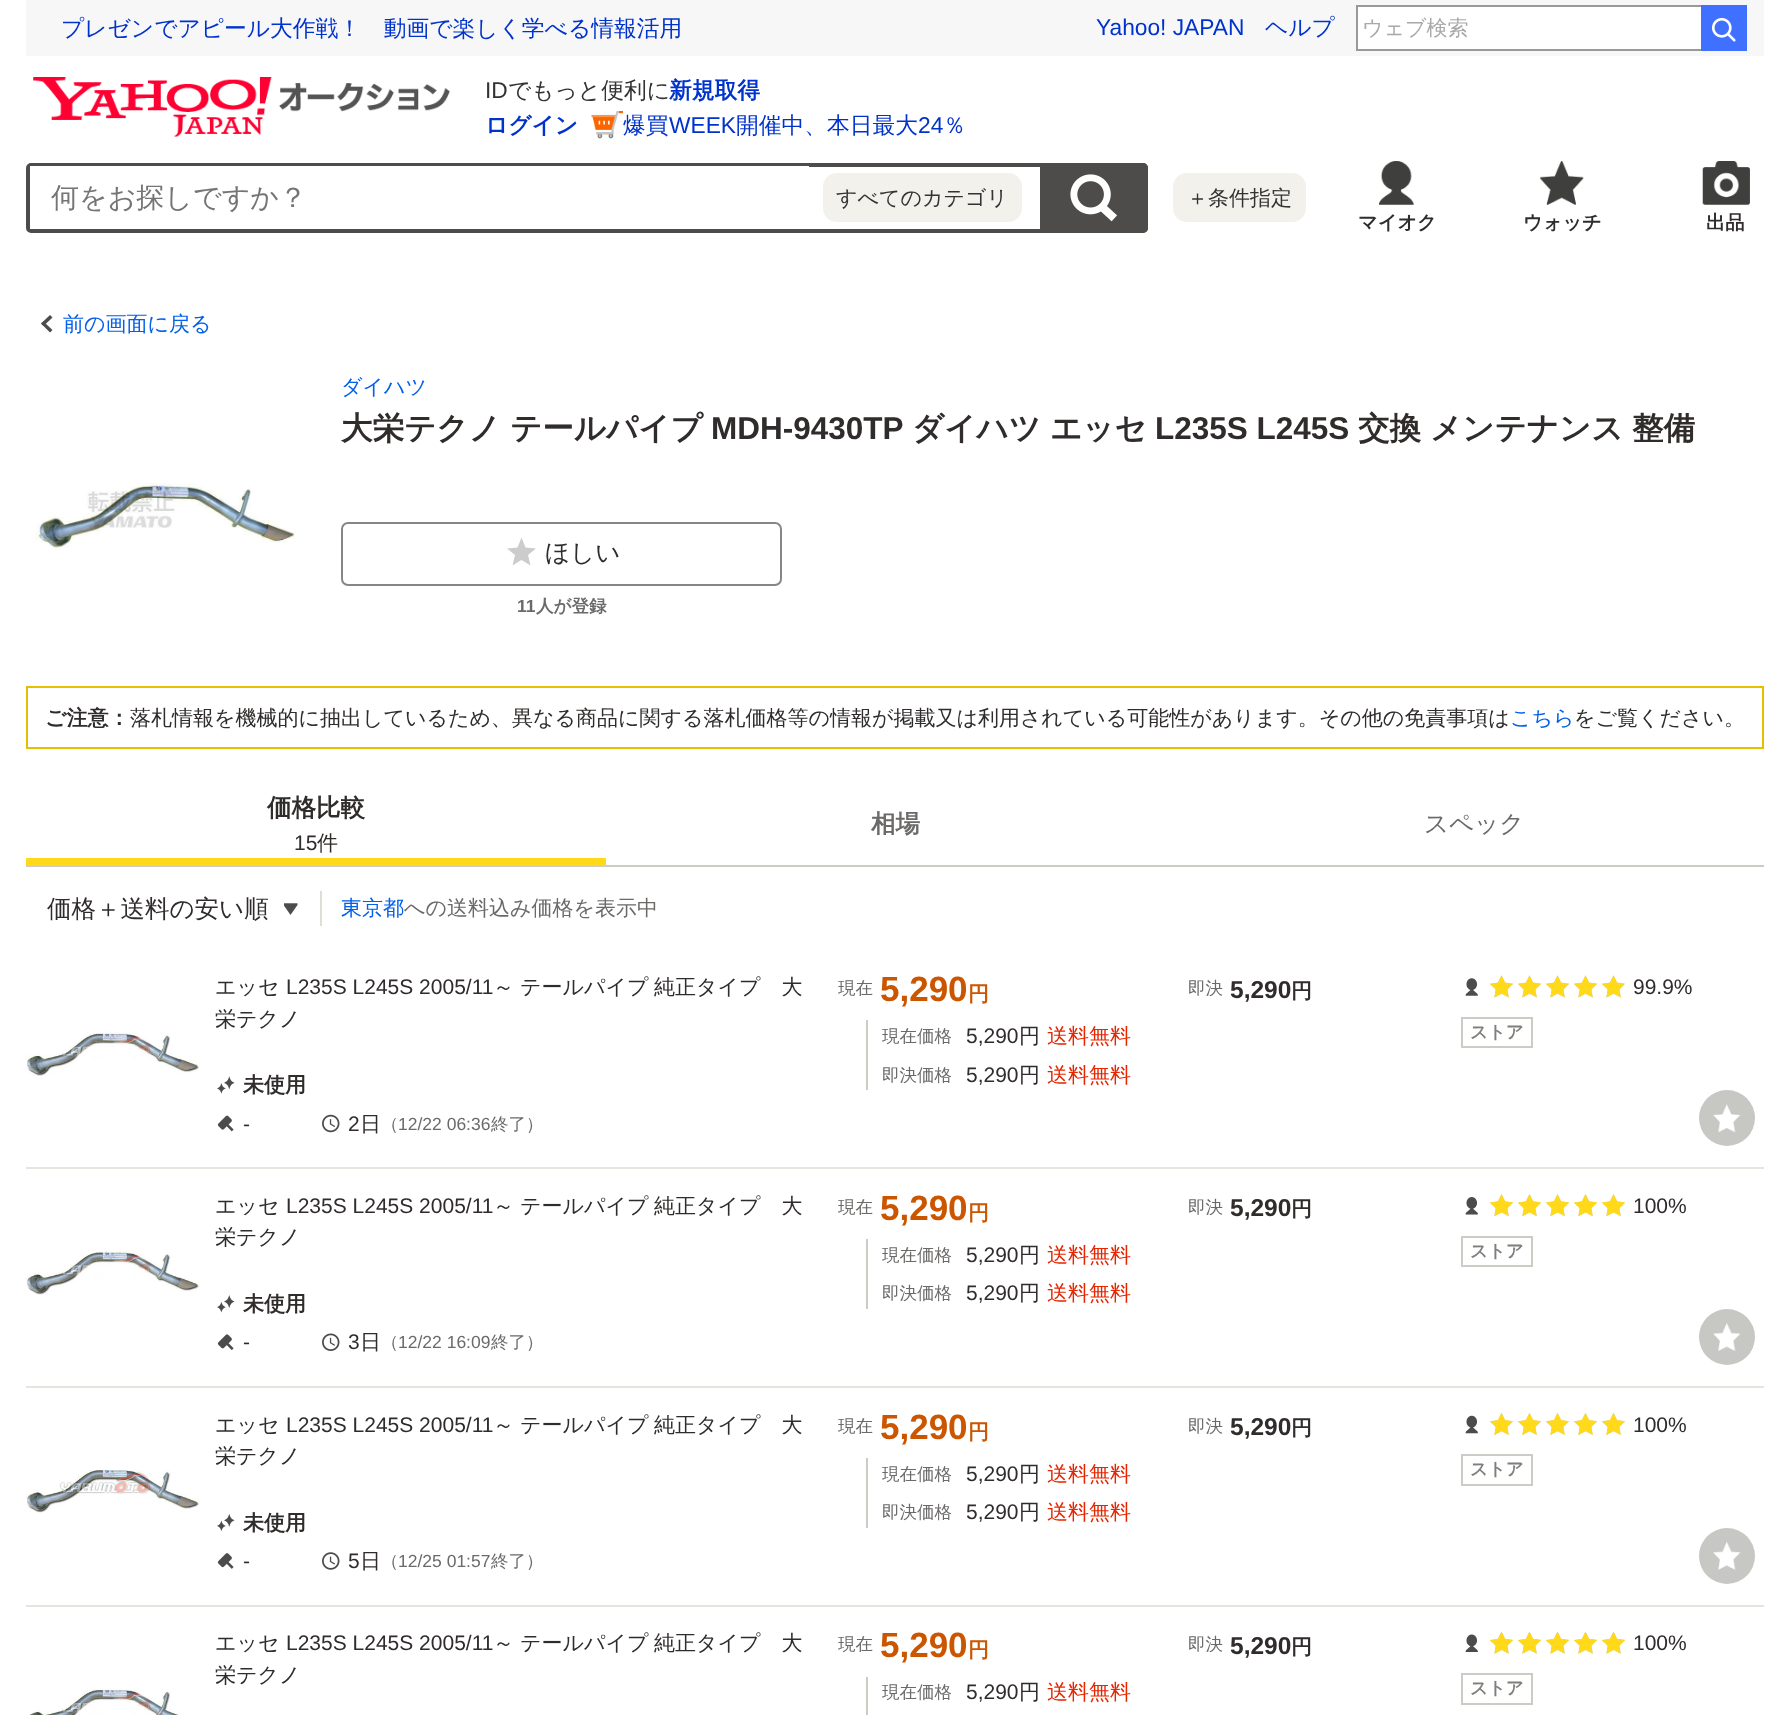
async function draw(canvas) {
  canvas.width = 1789
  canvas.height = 1715
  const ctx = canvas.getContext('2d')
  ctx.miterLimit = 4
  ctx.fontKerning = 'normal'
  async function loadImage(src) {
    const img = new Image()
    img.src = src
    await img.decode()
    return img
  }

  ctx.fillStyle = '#fff'
  ctx.fillRect(0, 0, 1789, 1715)
  ctx.fillStyle = '#f7f7f8'
  ctx.fillRect(26, 0, 1738, 56)
  ctx.font = '500 22.75px WenQuanYi Zen Hei'
  ctx.fillStyle = '#03c'
  ctx.fillText('プレゼンでアピール大作戦！　動画で楽しく学べる情報活用', 61, 36)
  ctx.font = '22.75px Liberation Sans'
  ctx.fillText('Yahoo! JAPAN', 1096, 35)
  ctx.font = '500 22.75px WenQuanYi Zen Hei'
  ctx.fillText('ヘルプ', 1265, 35)
  ctx.fillStyle = '#fff'
  ctx.fillRect(1358, 7, 343, 42)
  ctx.fillStyle = '#999'
  ctx.fillRect(1356, 5, 345, 2)
  ctx.fillRect(1356, 49, 345, 2)
  ctx.fillRect(1356, 5, 2, 46)
  ctx.font = '500 21px WenQuanYi Zen Hei'
  ctx.fillStyle = '#a9a9a9'
  ctx.fillText('ウェブ検索', 1362, 35)
  ctx.fillStyle = '#4070ff'
  ctx.fillRect(1701, 5, 46, 46)
  ctx.drawImage(await loadImage('image0.png'), 1711, 17, 25, 25)
  ctx.drawImage(await loadImage('image1.png'), 33, 77, 417, 60)
  ctx.font = '22.75px Liberation Sans'
  ctx.fillStyle = '#333'
  ctx.fillText('ID', 485, 98)
  ctx.font = '500 22.75px WenQuanYi Zen Hei'
  ctx.fillText('でもっと便利に', 508, 98)
  ctx.font = 'bold 22.75px WenQuanYi Zen Hei'
  ctx.fillStyle = '#03c'
  ctx.fillText('新規取得', 669, 98)
  ctx.fillText('ログイン', 485, 133)
  ctx.drawImage(await loadImage('image2.png'), 591, 111, 32, 28)
  ctx.font = '500 22.75px WenQuanYi Zen Hei'
  ctx.fillText('爆買', 623, 133)
  ctx.font = '22.75px Liberation Sans'
  ctx.fillText('WEEK', 669, 133)
  ctx.font = '500 22.75px WenQuanYi Zen Hei'
  ctx.fillText('開催中、本日最大', 736, 133)
  ctx.font = '22.75px Liberation Sans'
  ctx.fillText('24', 918, 133)
  ctx.font = '500 22.75px WenQuanYi Zen Hei'
  ctx.fillText('％', 943, 133)
  ctx.beginPath()
  ctx.roundRect(28, 165, 1118, 66, 3)
  ctx.strokeStyle = '#4d4c4a'
  ctx.lineWidth = 4
  ctx.stroke()
  ctx.fillStyle = '#fff'
  ctx.fillRect(30, 166, 779, 63)
  ctx.font = '500 28px WenQuanYi Zen Hei'
  ctx.fillStyle = '#757575'
  ctx.fillText('何をお探しですか？', 51, 207)
  ctx.fillStyle = '#f2f1eb'
  ctx.beginPath()
  ctx.roundRect(823, 173, 199, 49, 14)
  ctx.fill()
  ctx.font = '500 21px WenQuanYi Zen Hei'
  ctx.fillStyle = '#333'
  ctx.fillText('すべてのカテゴリ', 836, 205)
  ctx.fillStyle = '#4d4c4a'
  ctx.beginPath()
  ctx.roundRect(1040, 163, 108, 70, [0, 5, 5, 0])
  ctx.fill()
  ctx.drawImage(await loadImage('image3.png'), 1070, 174, 47, 48)
  ctx.fillStyle = '#f2f1eb'
  ctx.beginPath()
  ctx.roundRect(1173, 173, 133, 49, 14)
  ctx.fill()
  ctx.fillStyle = '#333'
  ctx.fillText('＋条件指定', 1187, 205)
  ctx.drawImage(await loadImage('image4.png'), 1379, 161, 35, 44)
  ctx.font = 'bold 19.25px WenQuanYi Zen Hei'
  ctx.fillStyle = '#2f2c2b'
  ctx.fillText('マイオク', 1358, 229)
  ctx.drawImage(await loadImage('image5.png'), 1540, 161, 44, 44)
  ctx.fillText('ウォッチ', 1523, 229)
  ctx.drawImage(await loadImage('image6.png'), 1702, 161, 48, 44)
  ctx.fillText('出品', 1706, 229)
  ctx.fillStyle = '#4d4c4a'
  ctx.beginPath()
  ctx.moveTo(50, 332.5)
  ctx.lineTo(41, 323.5)
  ctx.lineTo(43.5, 321.5)
  ctx.lineTo(52.5, 330)
  ctx.closePath()
  ctx.fill()
  ctx.beginPath()
  ctx.moveTo(43.5, 326)
  ctx.lineTo(41, 323.5)
  ctx.lineTo(50, 315)
  ctx.lineTo(52.5, 317.5)
  ctx.closePath()
  ctx.fill()
  ctx.font = '500 21px WenQuanYi Zen Hei'
  ctx.fillStyle = '#0260ea'
  ctx.fillText('前の画面に戻る', 63, 331)
  ctx.fillText('ダイハツ', 341, 394)
  ctx.font = 'bold 31.5px WenQuanYi Zen Hei'
  ctx.fillStyle = '#2f2c2b'
  ctx.fillText('大栄テクノ', 341, 439)
  ctx.fillText('テールパイプ', 510, 439)
  ctx.font = 'bold 31.5px Liberation Sans'
  ctx.fillText('MDH-9430TP', 711, 439)
  ctx.font = 'bold 31.5px WenQuanYi Zen Hei'
  ctx.fillText('ダイハツ', 912, 439)
  ctx.fillText('エッセ', 1050, 439)
  ctx.font = 'bold 31.5px Liberation Sans'
  ctx.fillText('L235S L245S', 1155, 439)
  ctx.font = 'bold 31.5px WenQuanYi Zen Hei'
  ctx.fillText('交換', 1358, 439)
  ctx.fillText('メンテナンス', 1430, 439)
  ctx.fillText('整備', 1632, 439)
  ctx.drawImage(await loadImage('image7.png'), 34, 483, 261, 67)
  ctx.beginPath()
  ctx.roundRect(342, 523, 439, 62, 6)
  ctx.strokeStyle = '#878685'
  ctx.lineWidth = 2
  ctx.stroke()
  ctx.fillStyle = '#ccc'
  ctx.beginPath()
  ctx.moveTo(521.5, 560)
  ctx.lineTo(530.5, 565.5)
  ctx.lineTo(528, 555)
  ctx.lineTo(536, 548.5)
  ctx.lineTo(525.5, 547.5)
  ctx.lineTo(521.5, 537.5)
  ctx.lineTo(517.5, 547.5)
  ctx.lineTo(507, 548.5)
  ctx.lineTo(515, 555)
  ctx.lineTo(512.5, 565.5)
  ctx.closePath()
  ctx.fill()
  ctx.font = '500 24.5px WenQuanYi Zen Hei'
  ctx.fillStyle = '#2f2c2b'
  ctx.fillText('ほしい', 545, 561)
  ctx.font = 'bold 17.5px Liberation Sans'
  ctx.fillStyle = '#6c6a69'
  ctx.fillText('11', 517, 612)
  ctx.font = 'bold 17.5px WenQuanYi Zen Hei'
  ctx.fillText('人が登録', 536, 612)
  ctx.strokeStyle = '#e5bf00'
  ctx.strokeRect(27, 687, 1736, 61)
  ctx.font = 'bold 21px WenQuanYi Zen Hei'
  ctx.fillStyle = '#2f2c2b'
  ctx.fillText('ご注意：', 45, 725)
  ctx.font = '500 21px WenQuanYi Zen Hei'
  ctx.fillText('落札情報を機械的に抽出しているため、異なる商品に関する落札価格等の情報が掲載又は利用されている可能性があります。その他の免責事項は', 130, 725)
  ctx.fillStyle = '#0260ea'
  ctx.fillText('こちら', 1510, 725)
  ctx.fillStyle = '#2f2c2b'
  ctx.fillText('をご覧ください。', 1574, 725)
  ctx.fillStyle = '#cccbc6'
  ctx.fillRect(26, 865, 1738, 2)
  ctx.font = 'bold 24.5px WenQuanYi Zen Hei'
  ctx.fillStyle = '#2f2c2b'
  ctx.fillText('価格比較', 267, 816)
  ctx.font = '21px Liberation Sans'
  ctx.fillText('15', 294, 850)
  ctx.font = '500 21px WenQuanYi Zen Hei'
  ctx.fillText('件', 317, 850)
  ctx.fillStyle = '#ffd91a'
  ctx.fillRect(26, 858, 580, 8)
  ctx.font = 'bold 24.5px WenQuanYi Zen Hei'
  ctx.fillStyle = '#6c6a69'
  ctx.fillText('相場', 871, 832)
  ctx.font = '500 24.5px WenQuanYi Zen Hei'
  ctx.fillText('スペック', 1424, 832)
  ctx.fillStyle = '#2f2c2b'
  ctx.fillText('価格＋送料の安い順', 47, 917)
  ctx.drawImage(await loadImage('image8.png'), 284, 903, 14, 12)
  ctx.fillStyle = '#deddd6'
  ctx.fillRect(320, 891, 2, 35)
  ctx.font = '500 21px WenQuanYi Zen Hei'
  ctx.fillStyle = '#0260ea'
  ctx.fillText('東京都', 341, 915)
  ctx.fillStyle = '#6c6a69'
  ctx.fillText('への送料込み価格を表示中', 404, 915)
  ctx.fillStyle = '#e5e4df'
  ctx.fillRect(26, 1167, 1738, 2)
  ctx.drawImage(await loadImage('image9.png'), 26, 1031, 173, 45)
  ctx.fillStyle = '#2f2c2b'
  ctx.fillText('エッセ', 215, 994)
  ctx.font = '21px Liberation Sans'
  ctx.fillText('L235S L245S 2005/11', 286, 994)
  ctx.font = '500 21px WenQuanYi Zen Hei'
  ctx.fillText('～', 493, 994)
  ctx.fillText('テールパイプ', 520, 994)
  ctx.fillText('純正タイプ　大', 654, 994)
  ctx.fillText('栄テクノ', 215, 1026)
  ctx.font = '500 17.5px WenQuanYi Zen Hei'
  ctx.fillStyle = '#6c6a69'
  ctx.fillText('現在', 838, 994)
  ctx.font = 'bold 35px Liberation Sans'
  ctx.fillStyle = '#c50'
  ctx.fillText('5,290', 880, 1001)
  ctx.font = 'bold 21px WenQuanYi Zen Hei'
  ctx.fillText('円', 968, 1001)
  ctx.font = '500 17.5px WenQuanYi Zen Hei'
  ctx.fillStyle = '#6c6a69'
  ctx.fillText('即決', 1188, 994)
  ctx.font = 'bold 24.5px Liberation Sans'
  ctx.fillStyle = '#2f2c2b'
  ctx.fillText('5,290', 1230, 998)
  ctx.font = 'bold 21px WenQuanYi Zen Hei'
  ctx.fillText('円', 1291, 998)
  ctx.fillStyle = '#cccbc6'
  ctx.fillRect(866, 1020, 2, 70)
  ctx.font = '500 17.5px WenQuanYi Zen Hei'
  ctx.fillStyle = '#6c6a69'
  ctx.fillText('現在価格', 882, 1042)
  ctx.font = '21px Liberation Sans'
  ctx.fillStyle = '#2f2c2b'
  ctx.fillText('5,290', 966, 1043)
  ctx.font = '500 21px WenQuanYi Zen Hei'
  ctx.fillText('円', 1019, 1043)
  ctx.fillStyle = '#e52600'
  ctx.fillText('送料無料', 1047, 1043)
  ctx.font = '500 17.5px WenQuanYi Zen Hei'
  ctx.fillStyle = '#6c6a69'
  ctx.fillText('即決価格', 882, 1081)
  ctx.font = '21px Liberation Sans'
  ctx.fillStyle = '#2f2c2b'
  ctx.fillText('5,290', 966, 1082)
  ctx.font = '500 21px WenQuanYi Zen Hei'
  ctx.fillText('円', 1019, 1082)
  ctx.fillStyle = '#e52600'
  ctx.fillText('送料無料', 1047, 1082)
  ctx.drawImage(await loadImage('image10.png'), 1465, 978, 13, 18)
  ctx.drawImage(await loadImage('image11.png'), 1490, 975, 23, 23)
  ctx.drawImage(await loadImage('image12.png'), 1490, 975, 23, 23)
  ctx.drawImage(await loadImage('image11.png'), 1518, 975, 23, 23)
  ctx.drawImage(await loadImage('image12.png'), 1518, 975, 23, 23)
  ctx.drawImage(await loadImage('image11.png'), 1546, 975, 23, 23)
  ctx.drawImage(await loadImage('image12.png'), 1546, 975, 23, 23)
  ctx.drawImage(await loadImage('image11.png'), 1574, 975, 23, 23)
  ctx.drawImage(await loadImage('image12.png'), 1574, 975, 23, 23)
  ctx.drawImage(await loadImage('image11.png'), 1602, 975, 23, 23)
  ctx.drawImage(await loadImage('image13.png'), 1602, 975, 22, 23)
  ctx.font = '21px Liberation Sans'
  ctx.fillStyle = '#2f2c2b'
  ctx.fillText('99.9%', 1633, 994)
  ctx.strokeStyle = '#cccbc6'
  ctx.strokeRect(1462, 1018, 70, 29)
  ctx.font = 'bold 17.5px WenQuanYi Zen Hei'
  ctx.fillStyle = '#807f7c'
  ctx.fillText('ストア', 1470, 1038)
  ctx.drawImage(await loadImage('image14.png'), 217, 1076, 18, 18)
  ctx.font = 'bold 21px WenQuanYi Zen Hei'
  ctx.fillStyle = '#2f2c2b'
  ctx.fillText('未使用', 243, 1092)
  ctx.drawImage(await loadImage('image15.png'), 217, 1115, 17, 17)
  ctx.font = '21px Liberation Sans'
  ctx.fillText('-', 243, 1131)
  ctx.drawImage(await loadImage('image16.png'), 322, 1114, 18, 19)
  ctx.fillText('2', 348, 1131)
  ctx.font = '500 21px WenQuanYi Zen Hei'
  ctx.fillText('日', 360, 1131)
  ctx.font = '500 17.5px WenQuanYi Zen Hei'
  ctx.fillStyle = '#6c6a69'
  ctx.fillText('（', 381, 1130)
  ctx.font = '17.5px Liberation Sans'
  ctx.fillText('12/22 06:36', 398, 1130)
  ctx.font = '500 17.5px WenQuanYi Zen Hei'
  ctx.fillText('終了）', 491, 1130)
  ctx.fillStyle = '#c7c7c4'
  ctx.beginPath()
  ctx.arc(1727, 1118, 28, 0, 2 * Math.PI)
  ctx.fill()
  ctx.drawImage(await loadImage('image17.png'), 1713, 1104, 28, 29)
  ctx.fillStyle = '#e5e4df'
  ctx.fillRect(26, 1386, 1738, 2)
  ctx.drawImage(await loadImage('image18.png'), 26, 1250, 173, 45)
  ctx.font = '500 21px WenQuanYi Zen Hei'
  ctx.fillStyle = '#2f2c2b'
  ctx.fillText('エッセ', 215, 1213)
  ctx.font = '21px Liberation Sans'
  ctx.fillText('L235S L245S 2005/11', 286, 1213)
  ctx.font = '500 21px WenQuanYi Zen Hei'
  ctx.fillText('～', 493, 1213)
  ctx.fillText('テールパイプ', 520, 1213)
  ctx.fillText('純正タイプ　大', 654, 1213)
  ctx.fillText('栄テクノ', 215, 1244)
  ctx.font = '500 17.5px WenQuanYi Zen Hei'
  ctx.fillStyle = '#6c6a69'
  ctx.fillText('現在', 838, 1213)
  ctx.font = 'bold 35px Liberation Sans'
  ctx.fillStyle = '#c50'
  ctx.fillText('5,290', 880, 1220)
  ctx.font = 'bold 21px WenQuanYi Zen Hei'
  ctx.fillText('円', 968, 1220)
  ctx.font = '500 17.5px WenQuanYi Zen Hei'
  ctx.fillStyle = '#6c6a69'
  ctx.fillText('即決', 1188, 1213)
  ctx.font = 'bold 24.5px Liberation Sans'
  ctx.fillStyle = '#2f2c2b'
  ctx.fillText('5,290', 1230, 1216)
  ctx.font = 'bold 21px WenQuanYi Zen Hei'
  ctx.fillText('円', 1291, 1216)
  ctx.fillStyle = '#cccbc6'
  ctx.fillRect(866, 1239, 2, 70)
  ctx.font = '500 17.5px WenQuanYi Zen Hei'
  ctx.fillStyle = '#6c6a69'
  ctx.fillText('現在価格', 882, 1261)
  ctx.font = '21px Liberation Sans'
  ctx.fillStyle = '#2f2c2b'
  ctx.fillText('5,290', 966, 1262)
  ctx.font = '500 21px WenQuanYi Zen Hei'
  ctx.fillText('円', 1019, 1262)
  ctx.fillStyle = '#e52600'
  ctx.fillText('送料無料', 1047, 1262)
  ctx.font = '500 17.5px WenQuanYi Zen Hei'
  ctx.fillStyle = '#6c6a69'
  ctx.fillText('即決価格', 882, 1299)
  ctx.font = '21px Liberation Sans'
  ctx.fillStyle = '#2f2c2b'
  ctx.fillText('5,290', 966, 1300)
  ctx.font = '500 21px WenQuanYi Zen Hei'
  ctx.fillText('円', 1019, 1300)
  ctx.fillStyle = '#e52600'
  ctx.fillText('送料無料', 1047, 1300)
  ctx.drawImage(await loadImage('image19.png'), 1465, 1197, 13, 18)
  ctx.drawImage(await loadImage('image20.png'), 1490, 1194, 23, 22)
  ctx.drawImage(await loadImage('image21.png'), 1490, 1194, 23, 22)
  ctx.drawImage(await loadImage('image20.png'), 1518, 1194, 23, 22)
  ctx.drawImage(await loadImage('image21.png'), 1518, 1194, 23, 22)
  ctx.drawImage(await loadImage('image20.png'), 1546, 1194, 23, 22)
  ctx.drawImage(await loadImage('image21.png'), 1546, 1194, 23, 22)
  ctx.drawImage(await loadImage('image20.png'), 1574, 1194, 23, 22)
  ctx.drawImage(await loadImage('image21.png'), 1574, 1194, 23, 22)
  ctx.drawImage(await loadImage('image20.png'), 1602, 1194, 23, 22)
  ctx.drawImage(await loadImage('image21.png'), 1602, 1194, 23, 22)
  ctx.font = '21px Liberation Sans'
  ctx.fillStyle = '#2f2c2b'
  ctx.fillText('100%', 1633, 1213)
  ctx.strokeRect(1462, 1237, 70, 29)
  ctx.font = 'bold 17.5px WenQuanYi Zen Hei'
  ctx.fillStyle = '#807f7c'
  ctx.fillText('ストア', 1470, 1257)
  ctx.drawImage(await loadImage('image22.png'), 217, 1295, 18, 18)
  ctx.font = 'bold 21px WenQuanYi Zen Hei'
  ctx.fillStyle = '#2f2c2b'
  ctx.fillText('未使用', 243, 1311)
  ctx.drawImage(await loadImage('image23.png'), 217, 1334, 17, 16)
  ctx.font = '21px Liberation Sans'
  ctx.fillText('-', 243, 1349)
  ctx.drawImage(await loadImage('image24.png'), 322, 1333, 18, 18)
  ctx.fillText('3', 348, 1349)
  ctx.font = '500 21px WenQuanYi Zen Hei'
  ctx.fillText('日', 360, 1349)
  ctx.font = '500 17.5px WenQuanYi Zen Hei'
  ctx.fillStyle = '#6c6a69'
  ctx.fillText('（', 381, 1348)
  ctx.font = '17.5px Liberation Sans'
  ctx.fillText('12/22 16:09', 398, 1348)
  ctx.font = '500 17.5px WenQuanYi Zen Hei'
  ctx.fillText('終了）', 491, 1348)
  ctx.fillStyle = '#c7c7c4'
  ctx.beginPath()
  ctx.arc(1727, 1337, 28, 0, 2 * Math.PI)
  ctx.fill()
  ctx.drawImage(await loadImage('image25.png'), 1713, 1323, 28, 28)
  ctx.fillStyle = '#e5e4df'
  ctx.fillRect(26, 1605, 1738, 2)
  ctx.drawImage(await loadImage('image26.png'), 26, 1470, 173, 43)
  ctx.font = '500 21px WenQuanYi Zen Hei'
  ctx.fillStyle = '#2f2c2b'
  ctx.fillText('エッセ', 215, 1432)
  ctx.font = '21px Liberation Sans'
  ctx.fillText('L235S L245S 2005/11', 286, 1432)
  ctx.font = '500 21px WenQuanYi Zen Hei'
  ctx.fillText('～', 493, 1432)
  ctx.fillText('テールパイプ', 520, 1432)
  ctx.fillText('純正タイプ　大', 654, 1432)
  ctx.fillText('栄テクノ', 215, 1463)
  ctx.font = '500 17.5px WenQuanYi Zen Hei'
  ctx.fillStyle = '#6c6a69'
  ctx.fillText('現在', 838, 1432)
  ctx.font = 'bold 35px Liberation Sans'
  ctx.fillStyle = '#c50'
  ctx.fillText('5,290', 880, 1439)
  ctx.font = 'bold 21px WenQuanYi Zen Hei'
  ctx.fillText('円', 968, 1439)
  ctx.font = '500 17.5px WenQuanYi Zen Hei'
  ctx.fillStyle = '#6c6a69'
  ctx.fillText('即決', 1188, 1432)
  ctx.font = 'bold 24.5px Liberation Sans'
  ctx.fillStyle = '#2f2c2b'
  ctx.fillText('5,290', 1230, 1435)
  ctx.font = 'bold 21px WenQuanYi Zen Hei'
  ctx.fillText('円', 1291, 1435)
  ctx.fillStyle = '#cccbc6'
  ctx.fillRect(866, 1458, 2, 70)
  ctx.font = '500 17.5px WenQuanYi Zen Hei'
  ctx.fillStyle = '#6c6a69'
  ctx.fillText('現在価格', 882, 1480)
  ctx.font = '21px Liberation Sans'
  ctx.fillStyle = '#2f2c2b'
  ctx.fillText('5,290', 966, 1481)
  ctx.font = '500 21px WenQuanYi Zen Hei'
  ctx.fillText('円', 1019, 1481)
  ctx.fillStyle = '#e52600'
  ctx.fillText('送料無料', 1047, 1481)
  ctx.font = '500 17.5px WenQuanYi Zen Hei'
  ctx.fillStyle = '#6c6a69'
  ctx.fillText('即決価格', 882, 1518)
  ctx.font = '21px Liberation Sans'
  ctx.fillStyle = '#2f2c2b'
  ctx.fillText('5,290', 966, 1519)
  ctx.font = '500 21px WenQuanYi Zen Hei'
  ctx.fillText('円', 1019, 1519)
  ctx.fillStyle = '#e52600'
  ctx.fillText('送料無料', 1047, 1519)
  ctx.drawImage(await loadImage('image27.png'), 1465, 1415, 13, 19)
  ctx.drawImage(await loadImage('image28.png'), 1490, 1413, 23, 22)
  ctx.drawImage(await loadImage('image29.png'), 1490, 1413, 23, 22)
  ctx.drawImage(await loadImage('image28.png'), 1518, 1413, 23, 22)
  ctx.drawImage(await loadImage('image29.png'), 1518, 1413, 23, 22)
  ctx.drawImage(await loadImage('image28.png'), 1546, 1413, 23, 22)
  ctx.drawImage(await loadImage('image29.png'), 1546, 1413, 23, 22)
  ctx.drawImage(await loadImage('image28.png'), 1574, 1413, 23, 22)
  ctx.drawImage(await loadImage('image29.png'), 1574, 1413, 23, 22)
  ctx.drawImage(await loadImage('image28.png'), 1602, 1413, 23, 22)
  ctx.drawImage(await loadImage('image29.png'), 1602, 1413, 23, 22)
  ctx.font = '21px Liberation Sans'
  ctx.fillStyle = '#2f2c2b'
  ctx.fillText('100%', 1633, 1432)
  ctx.strokeRect(1462, 1455, 70, 30)
  ctx.font = 'bold 17.5px WenQuanYi Zen Hei'
  ctx.fillStyle = '#807f7c'
  ctx.fillText('ストア', 1470, 1475)
  ctx.drawImage(await loadImage('image30.png'), 217, 1514, 18, 17)
  ctx.font = 'bold 21px WenQuanYi Zen Hei'
  ctx.fillStyle = '#2f2c2b'
  ctx.fillText('未使用', 243, 1530)
  ctx.drawImage(await loadImage('image31.png'), 217, 1553, 17, 16)
  ctx.font = '21px Liberation Sans'
  ctx.fillText('-', 243, 1568)
  ctx.drawImage(await loadImage('image32.png'), 322, 1552, 18, 18)
  ctx.fillText('5', 348, 1568)
  ctx.font = '500 21px WenQuanYi Zen Hei'
  ctx.fillText('日', 360, 1568)
  ctx.font = '500 17.5px WenQuanYi Zen Hei'
  ctx.fillStyle = '#6c6a69'
  ctx.fillText('（', 381, 1567)
  ctx.font = '17.5px Liberation Sans'
  ctx.fillText('12/25 01:57', 398, 1567)
  ctx.font = '500 17.5px WenQuanYi Zen Hei'
  ctx.fillText('終了）', 491, 1567)
  ctx.fillStyle = '#c7c7c4'
  ctx.beginPath()
  ctx.arc(1727, 1556, 28, 0, 2 * Math.PI)
  ctx.fill()
  ctx.drawImage(await loadImage('image33.png'), 1713, 1541, 28, 29)
  ctx.drawImage(await loadImage('image34.png'), 29, 1688, 156, 27)
  ctx.font = '500 21px WenQuanYi Zen Hei'
  ctx.fillStyle = '#2f2c2b'
  ctx.fillText('エッセ', 215, 1650)
  ctx.font = '21px Liberation Sans'
  ctx.fillText('L235S L245S 2005/11', 286, 1650)
  ctx.font = '500 21px WenQuanYi Zen Hei'
  ctx.fillText('～', 493, 1650)
  ctx.fillText('テールパイプ', 520, 1650)
  ctx.fillText('純正タイプ　大', 654, 1650)
  ctx.fillText('栄テクノ', 215, 1682)
  ctx.font = '500 17.5px WenQuanYi Zen Hei'
  ctx.fillStyle = '#6c6a69'
  ctx.fillText('現在', 838, 1650)
  ctx.font = 'bold 35px Liberation Sans'
  ctx.fillStyle = '#c50'
  ctx.fillText('5,290', 880, 1657)
  ctx.font = 'bold 21px WenQuanYi Zen Hei'
  ctx.fillText('円', 968, 1657)
  ctx.font = '500 17.5px WenQuanYi Zen Hei'
  ctx.fillStyle = '#6c6a69'
  ctx.fillText('即決', 1188, 1650)
  ctx.font = 'bold 24.5px Liberation Sans'
  ctx.fillStyle = '#2f2c2b'
  ctx.fillText('5,290', 1230, 1654)
  ctx.font = 'bold 21px WenQuanYi Zen Hei'
  ctx.fillText('円', 1291, 1654)
  ctx.fillStyle = '#cccbc6'
  ctx.fillRect(866, 1677, 2, 38)
  ctx.font = '500 17.5px WenQuanYi Zen Hei'
  ctx.fillStyle = '#6c6a69'
  ctx.fillText('現在価格', 882, 1698)
  ctx.font = '21px Liberation Sans'
  ctx.fillStyle = '#2f2c2b'
  ctx.fillText('5,290', 966, 1699)
  ctx.font = '500 21px WenQuanYi Zen Hei'
  ctx.fillText('円', 1019, 1699)
  ctx.fillStyle = '#e52600'
  ctx.fillText('送料無料', 1047, 1699)
  ctx.drawImage(await loadImage('image35.png'), 1465, 1634, 13, 18)
  ctx.drawImage(await loadImage('image36.png'), 1490, 1631, 23, 23)
  ctx.drawImage(await loadImage('image37.png'), 1490, 1631, 23, 23)
  ctx.drawImage(await loadImage('image36.png'), 1518, 1631, 23, 23)
  ctx.drawImage(await loadImage('image37.png'), 1518, 1631, 23, 23)
  ctx.drawImage(await loadImage('image36.png'), 1546, 1631, 23, 23)
  ctx.drawImage(await loadImage('image37.png'), 1546, 1631, 23, 23)
  ctx.drawImage(await loadImage('image36.png'), 1574, 1631, 23, 23)
  ctx.drawImage(await loadImage('image37.png'), 1574, 1631, 23, 23)
  ctx.drawImage(await loadImage('image36.png'), 1602, 1631, 23, 23)
  ctx.drawImage(await loadImage('image37.png'), 1602, 1631, 23, 23)
  ctx.font = '21px Liberation Sans'
  ctx.fillStyle = '#2f2c2b'
  ctx.fillText('100%', 1633, 1650)
  ctx.strokeRect(1462, 1674, 70, 30)
  ctx.font = 'bold 17.5px WenQuanYi Zen Hei'
  ctx.fillStyle = '#807f7c'
  ctx.fillText('ストア', 1470, 1694)
}

draw(document.querySelector('canvas'))
